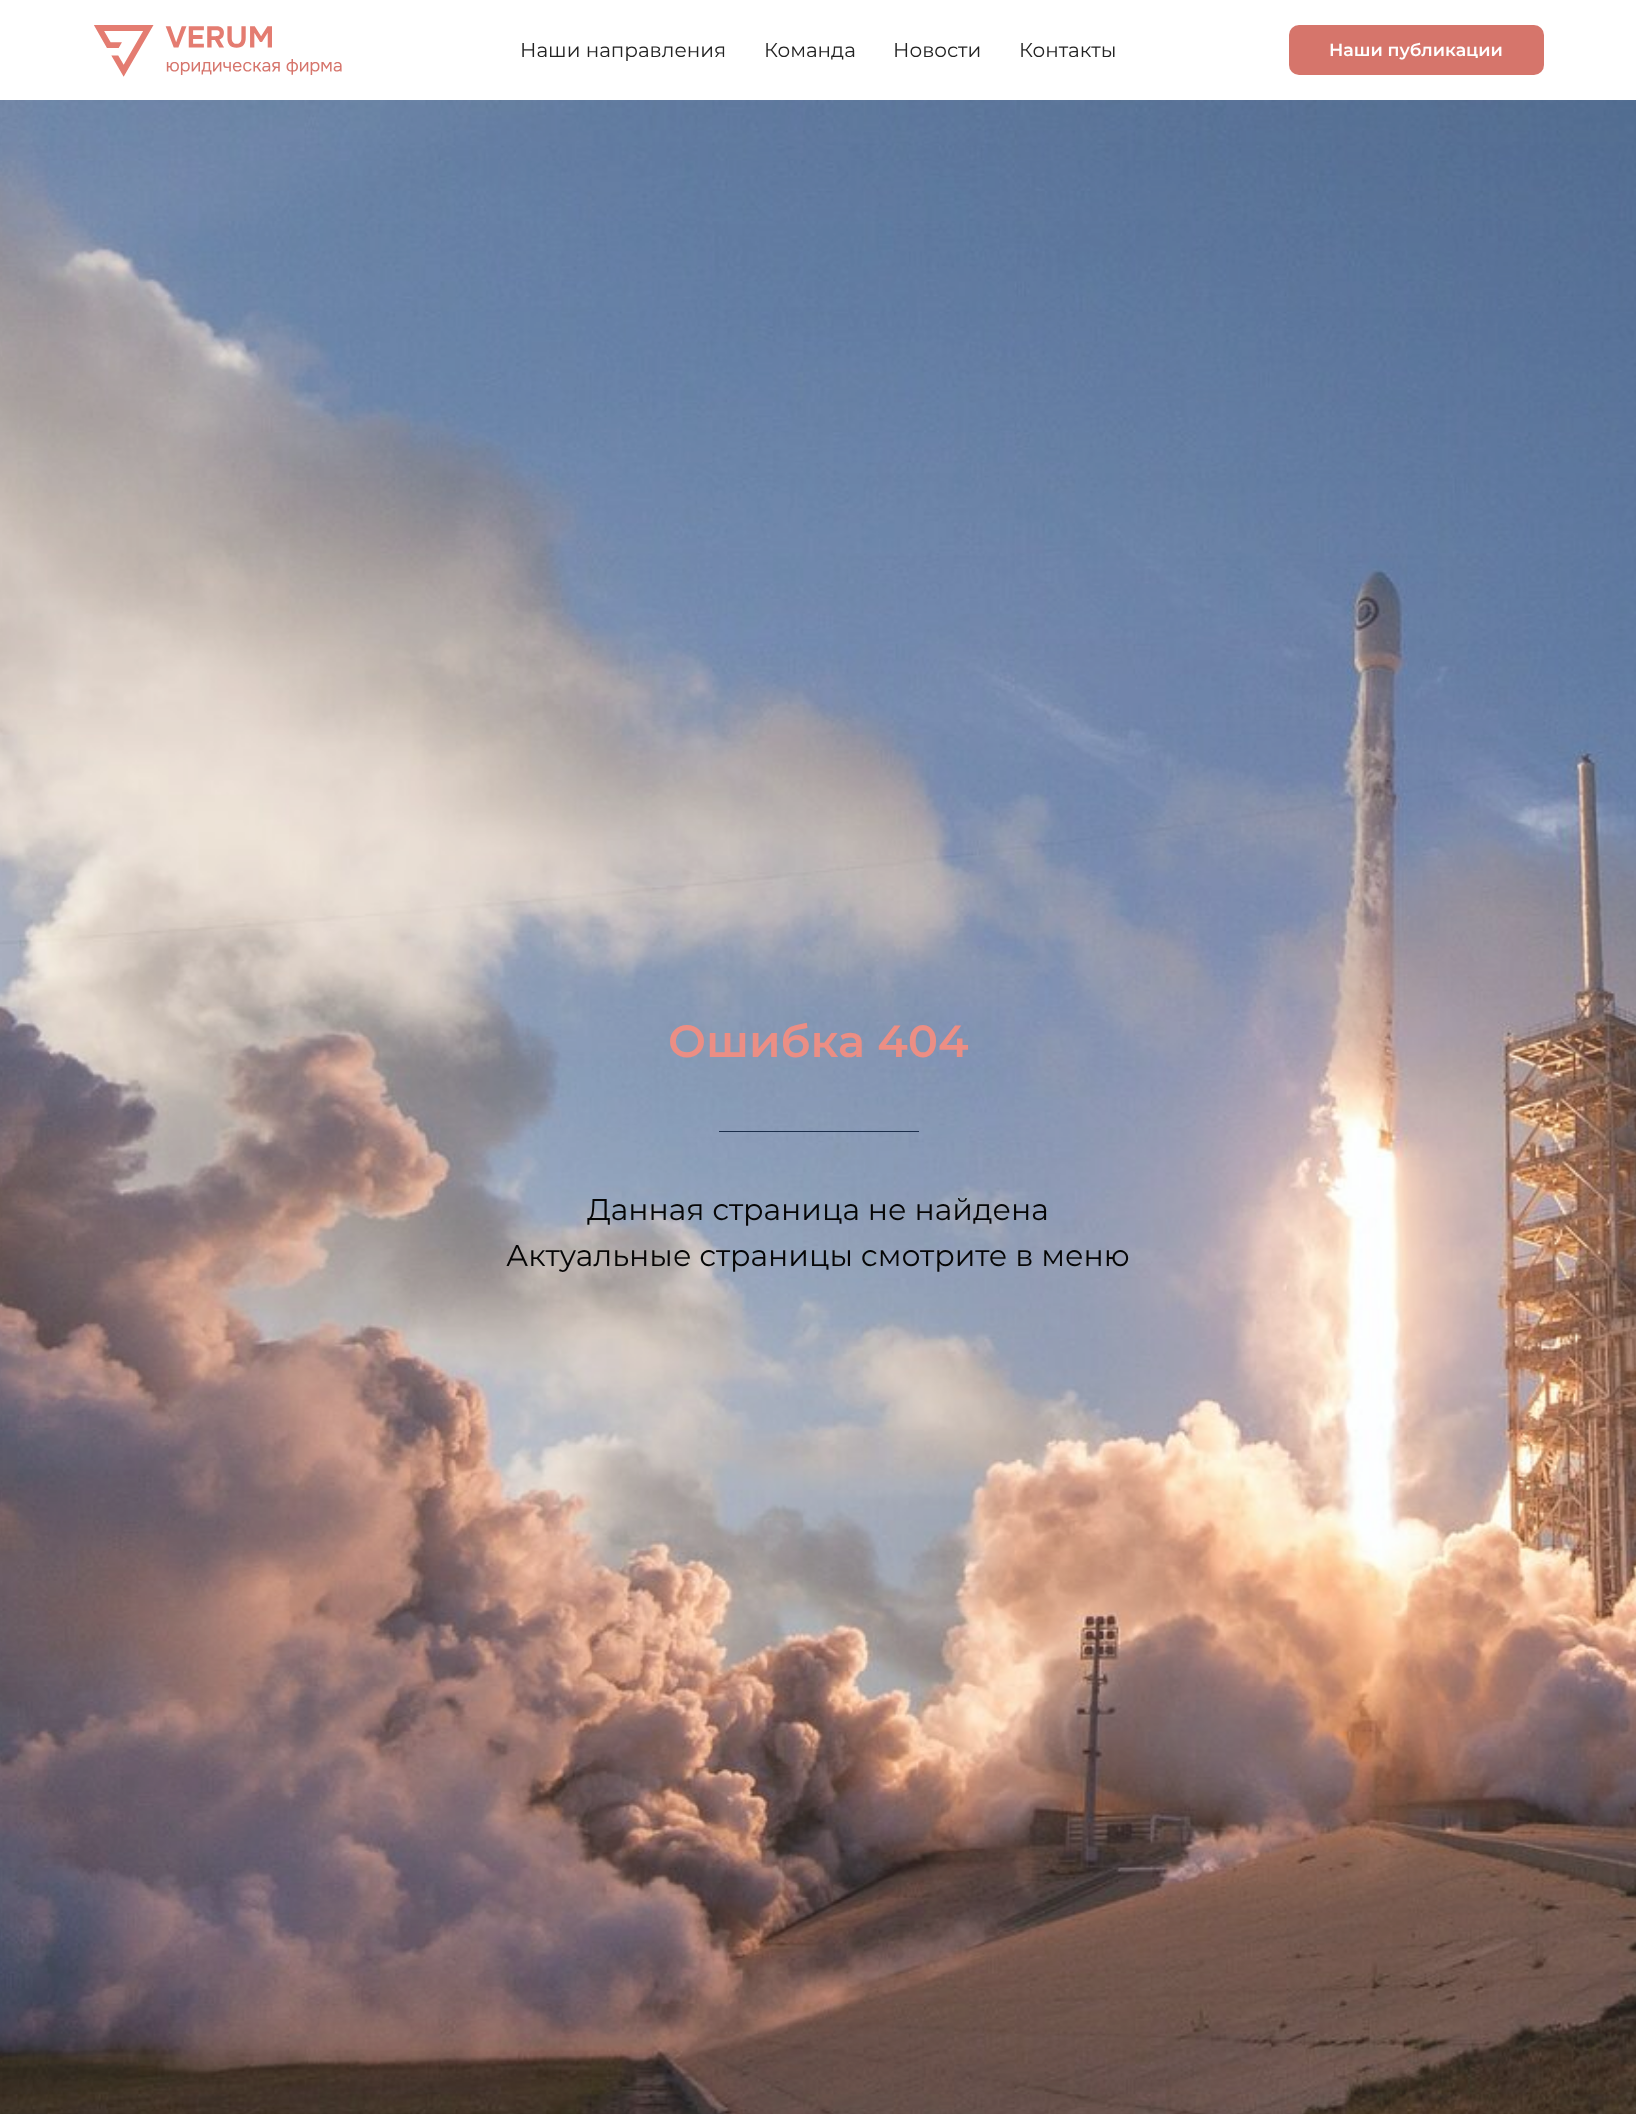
async function draw(canvas) {
  canvas.width = 1636
  canvas.height = 2114
  const ctx = canvas.getContext('2d')
  ctx.miterLimit = 4
  ctx.fontKerning = 'normal'
  async function loadImage(src) {
    const img = new Image()
    img.src = src
    await img.decode()
    return img
  }

  ctx.fillStyle = '#fff'
  ctx.fillRect(0, 0, 1636, 2114)
  ctx.drawImage(await loadImage('image0.png'), 94, 25, 248, 52)
  ctx.font = '20px Montserrat'
  ctx.fillStyle = '#232323'
  ctx.fillText('Наши направления', 520, 57)
  ctx.fillText('Команда', 764, 57)
  ctx.fillText('Новости', 893, 57)
  ctx.fillText('Контакты', 1019, 57)
  ctx.fillStyle = '#d6756b'
  ctx.beginPath()
  ctx.roundRect(1289, 25, 255, 50, 10)
  ctx.fill()
  ctx.font = '600 17.5px Montserrat'
  ctx.fillStyle = '#fff'
  ctx.fillText('Наши публикации', 1329, 56)
  ctx.drawImage(await loadImage('image1.png'), 0, 100, 1636, 2014)
  ctx.font = '600 45px Montserrat'
  ctx.fillStyle = '#ec8e84'
  ctx.fillText('Ошибка 404', 668, 1057)
  ctx.fillStyle = '#1a2d4a'
  ctx.fillRect(719, 1131, 200, 1)
  ctx.font = '30px Montserrat'
  ctx.fillStyle = '#050505'
  ctx.fillText('Данная страница не найдена', 587, 1220)
  ctx.fillText('Актуальные страницы смотрите в меню', 506, 1266)
}

draw(document.querySelector('canvas'))
